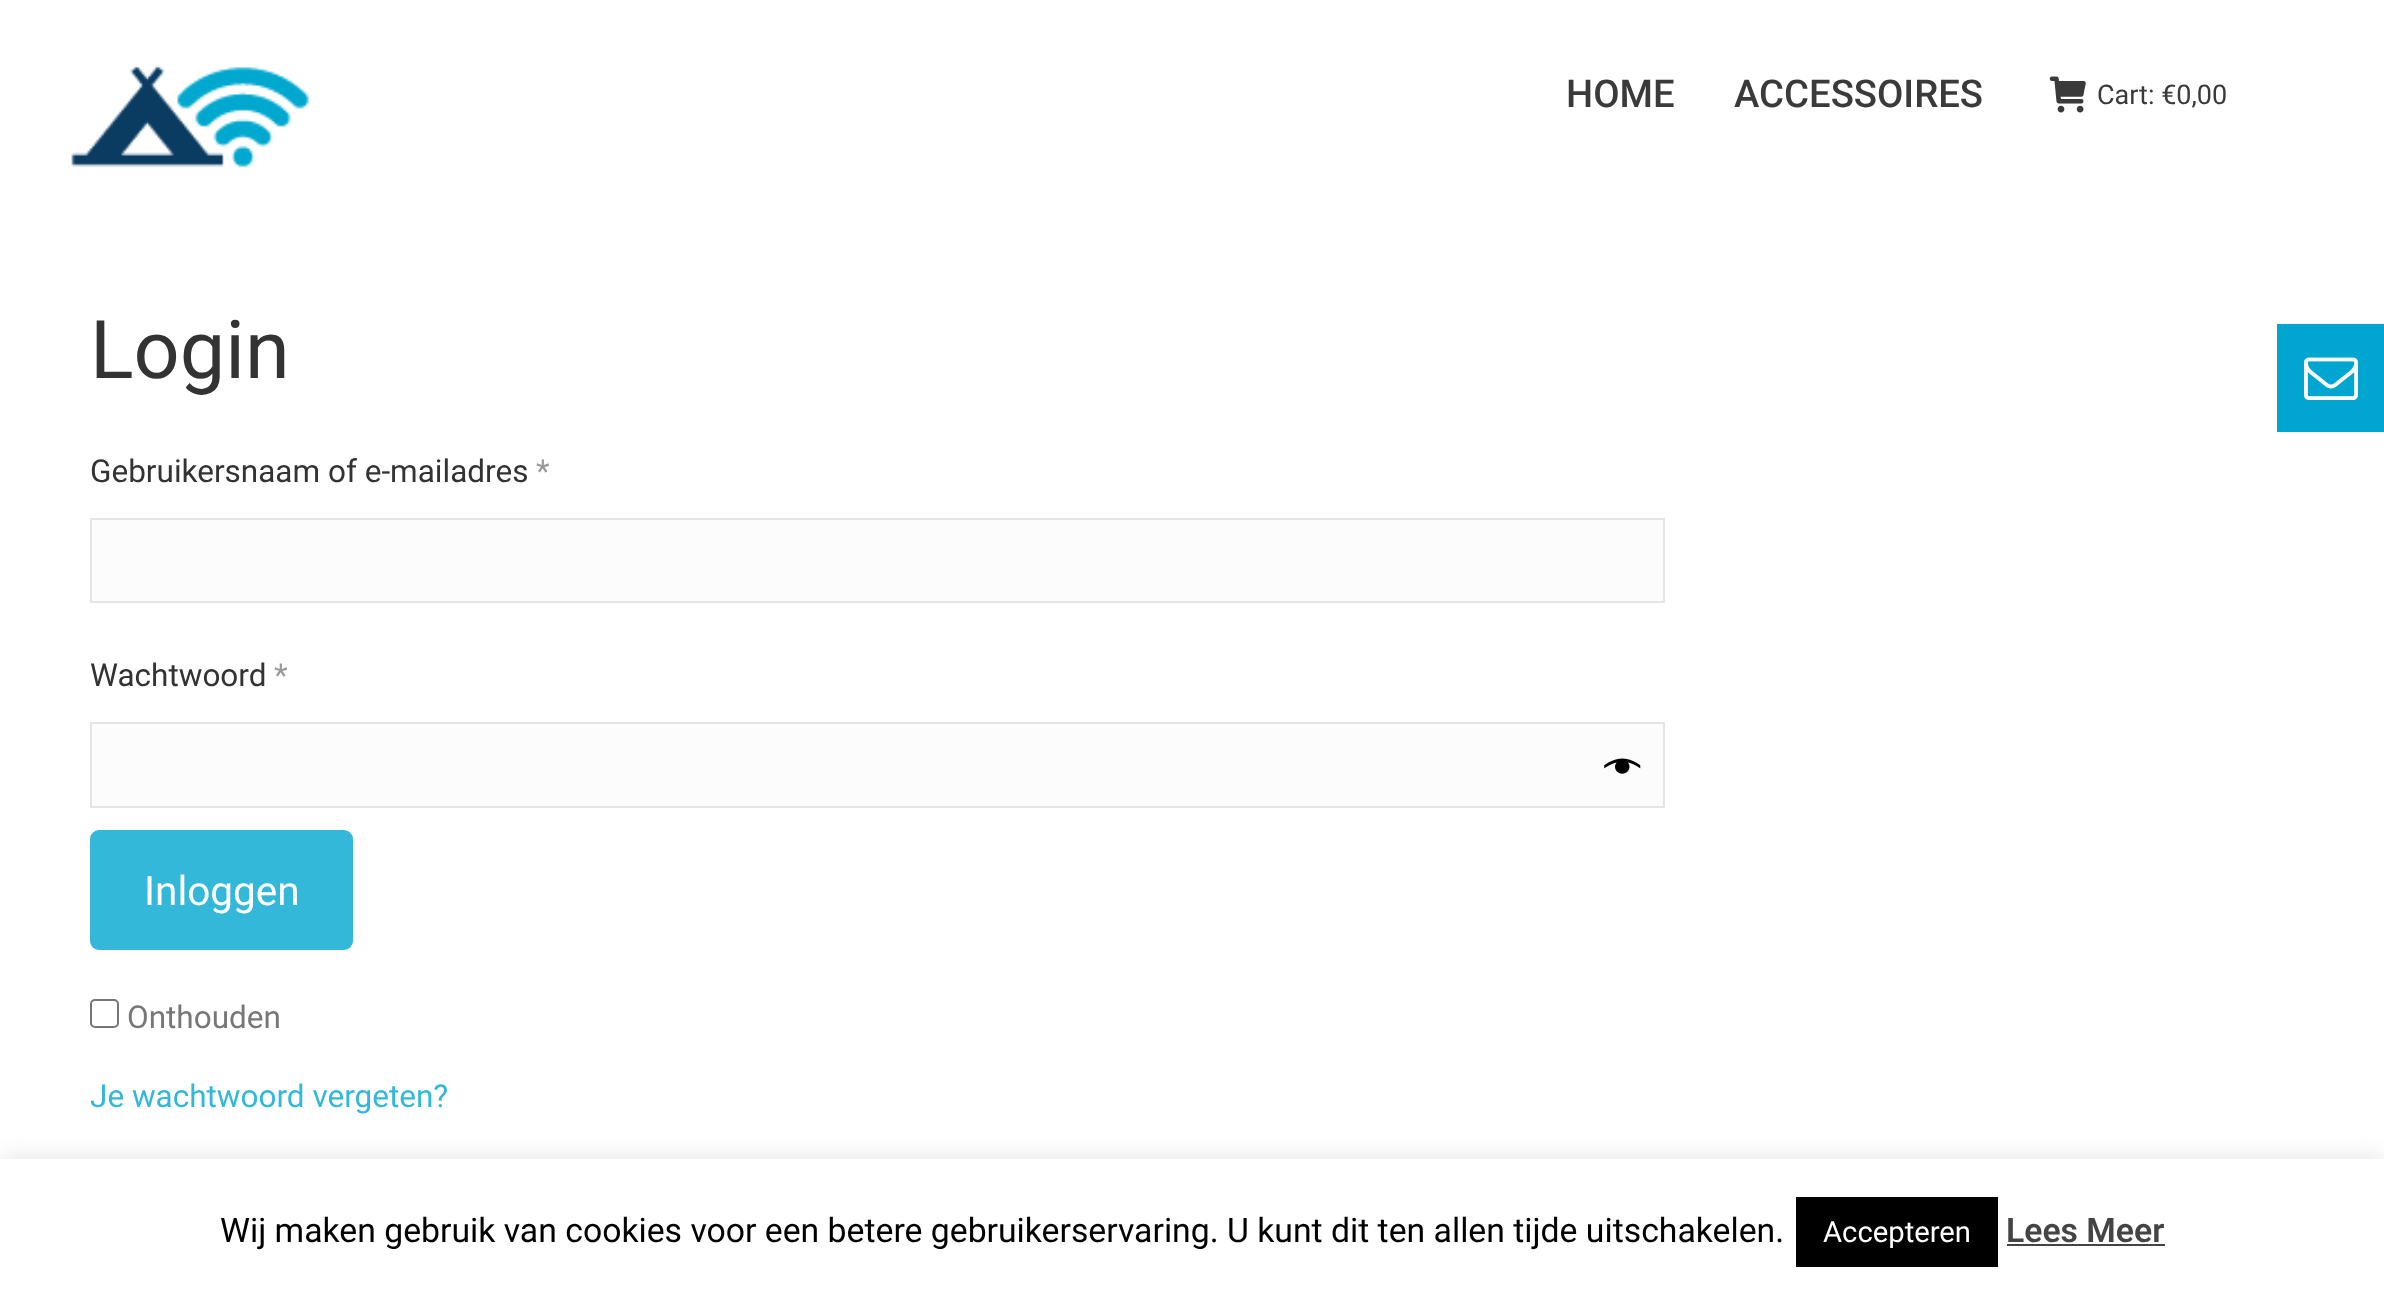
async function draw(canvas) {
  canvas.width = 2384
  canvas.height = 1292
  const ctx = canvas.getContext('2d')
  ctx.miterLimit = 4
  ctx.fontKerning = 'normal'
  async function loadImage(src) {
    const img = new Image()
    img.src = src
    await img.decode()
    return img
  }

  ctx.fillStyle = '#fff'
  ctx.fillRect(0, 0, 2384, 1292)
  ctx.drawImage(await loadImage('image0.png'), 71, 65, 238, 103)
  ctx.font = '500 38.25px Roboto'
  ctx.fillStyle = '#3a3a3a'
  ctx.fillText('HOME', 1566, 107)
  ctx.fillText('ACCESSOIRES', 1734, 107)
  ctx.drawImage(await loadImage('image1.png'), 2049, 76, 37, 37)
  ctx.font = '27px Roboto'
  ctx.fillText('Cart: €0,00', 2097, 104)
  ctx.font = '81px Roboto'
  ctx.fillStyle = '#333'
  ctx.fillText('Login', 90, 378)
  ctx.font = '31.5px Roboto'
  ctx.fillText('Gebruikersnaam of e-mailadres', 90, 482)
  ctx.fillStyle = '#999'
  ctx.fillText('*', 536, 482)
  ctx.fillStyle = '#fcfcfc'
  ctx.beginPath()
  ctx.rect(91, 519, 1573, 83)
  ctx.fill()
  ctx.strokeStyle = '#e4e5e7'
  ctx.lineWidth = 2
  ctx.stroke()
  ctx.fillStyle = '#333'
  ctx.fillText('Wachtwoord', 90, 686)
  ctx.fillStyle = '#999'
  ctx.fillText('*', 274, 686)
  ctx.fillStyle = '#fcfcfc'
  ctx.beginPath()
  ctx.rect(91, 723, 1573, 84)
  ctx.fill()
  ctx.stroke()
  ctx.drawImage(await loadImage('image2.png'), 1604, 758, 37, 16)
  ctx.fillStyle = '#33b8d9'
  ctx.beginPath()
  ctx.roundRect(90, 830, 263, 120, 9)
  ctx.fill()
  ctx.font = '40.5px Roboto'
  ctx.fillStyle = '#fff'
  ctx.fillText('Inloggen', 144, 905)
  ctx.beginPath()
  ctx.roundRect(91, 1000, 27, 27, 4)
  ctx.strokeStyle = '#767676'
  ctx.stroke()
  ctx.font = '31.5px Roboto'
  ctx.fillStyle = '#777'
  ctx.fillText('Onthouden', 127, 1028)
  ctx.fillStyle = '#33b8d9'
  ctx.fillText('Je wachtwoord vergeten?', 90, 1107)
  ctx.fillStyle = '#00a6cf'
  ctx.fillRect(2277, 324, 107, 108)
  ctx.drawImage(await loadImage('image3.png'), 2304, 357, 54, 43)
  ctx.fillStyle = '#acabab4d'
  ctx.filter = 'blur(11px)'
  ctx.beginPath()
  ctx.rect(0, 1157, 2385, 135)
  ctx.fill()
  ctx.filter = 'none'
  ctx.fillStyle = '#fff'
  ctx.fillRect(0, 1159, 2384, 133)
  ctx.font = '33.75px Roboto'
  ctx.fillStyle = '#000'
  ctx.fillText('Wij maken gebruik van cookies voor een betere gebruikerservaring. U kunt dit ten allen tijde uitschakelen.', 220, 1242)
  ctx.fillRect(1796, 1197, 202, 70)
  ctx.font = '29.25px Roboto'
  ctx.fillStyle = '#fff'
  ctx.fillText('Accepteren', 1823, 1242)
  ctx.font = '600 33.75px Roboto'
  ctx.fillStyle = '#444'
  ctx.fillText('Lees Meer', 2006, 1242)
  ctx.fillRect(2007, 1244, 158, 2)
}

draw(document.querySelector('canvas'))
